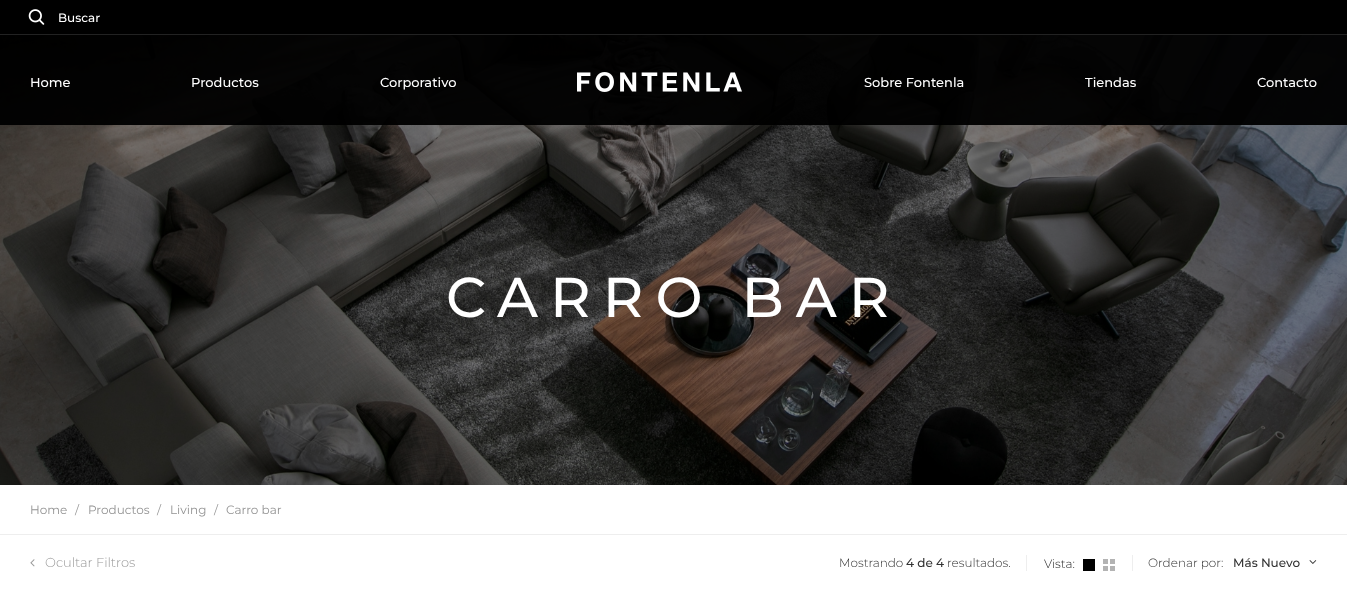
async function draw(canvas) {
  canvas.width = 1347
  canvas.height = 602
  const ctx = canvas.getContext('2d')
  ctx.miterLimit = 4
  ctx.fontKerning = 'normal'
  async function loadImage(src) {
    const img = new Image()
    img.src = src
    await img.decode()
    return img
  }

  ctx.fillStyle = '#fff'
  ctx.fillRect(0, 0, 1347, 602)
  ctx.drawImage(await loadImage('image2.png'), 0, 35, 1347, 450)
  ctx.fillStyle = '#000000fa'
  ctx.fillRect(0, 35, 1347, 90)
  ctx.fillStyle = '#000'
  ctx.fillRect(0, 0, 1347, 34)
  ctx.fillStyle = '#222'
  ctx.fillRect(0, 34, 1347, 1)
  ctx.drawImage(await loadImage('image0.png'), 28, 9, 17, 16)
  ctx.font = '500 12px Montserrat'
  ctx.fillStyle = '#fff'
  ctx.fillText('Buscar', 58, 22)
  ctx.font = '500 13px Montserrat'
  ctx.fillText('Home', 30, 87)
  ctx.fillText('Productos', 191, 87)
  ctx.fillText('Corporativo', 380, 87)
  ctx.drawImage(await loadImage('image1.png'), 577, 72, 165, 20)
  ctx.fillText('Sobre Fontenla', 864, 87)
  ctx.fillText('Tiendas', 1085, 87)
  ctx.fillText('Contacto', 1257, 87)
  ctx.fillStyle = '#00000080'
  ctx.fillRect(0, 125, 1347, 360)
  ctx.letterSpacing = '12px'
  ctx.font = '500 56px Montserrat'
  ctx.fillStyle = '#fff'
  ctx.fillText('CARRO BAR', 446, 317)
  ctx.fillStyle = '#eee'
  ctx.fillRect(0, 534, 1347, 1)
  ctx.letterSpacing = '0px'
  ctx.font = '12px Montserrat'
  ctx.fillStyle = '#939393'
  ctx.fillText('Home', 30, 514)
  ctx.fillStyle = '#999'
  ctx.fillText('/', 75, 514)
  ctx.fillStyle = '#939393'
  ctx.fillText('Productos', 88, 514)
  ctx.fillStyle = '#999'
  ctx.fillText('/', 157, 514)
  ctx.fillStyle = '#939393'
  ctx.fillText('Living', 170, 514)
  ctx.fillStyle = '#999'
  ctx.fillText('/', 214, 514)
  ctx.fillStyle = '#939393'
  ctx.fillText('Carro bar', 226, 514)
  ctx.drawImage(await loadImage('image3.png'), 30, 559, 5, 8)
  ctx.font = '300 13px Montserrat'
  ctx.fillStyle = '#999'
  ctx.fillText('Ocultar Filtros', 45, 567)
  ctx.font = '300 12px Montserrat'
  ctx.fillStyle = '#333'
  ctx.fillText('Mostrando', 839, 567)
  ctx.font = '500 12px Montserrat'
  ctx.fillText('4 de 4', 906, 567)
  ctx.font = '300 12px Montserrat'
  ctx.fillText('resultados.', 947, 567)
  ctx.fillStyle = '#eee'
  ctx.fillRect(1132, 555, 1, 16)
  ctx.fillRect(1026, 555, 1, 16)
  ctx.fillStyle = '#222'
  ctx.fillText('Vista:', 1044, 568)
  ctx.fillStyle = '#000'
  ctx.fillRect(1083, 559, 12, 12)
  ctx.drawImage(await loadImage('image4.png'), 1103, 559, 12, 12)
  ctx.fillStyle = '#333'
  ctx.fillText('Ordenar por:', 1148, 567)
  ctx.font = '500 12px Montserrat'
  ctx.fillText('Más Nuevo', 1233, 567)
  ctx.drawImage(await loadImage('image5.png'), 1309, 560, 8, 4)
}

draw(document.querySelector('canvas'))
